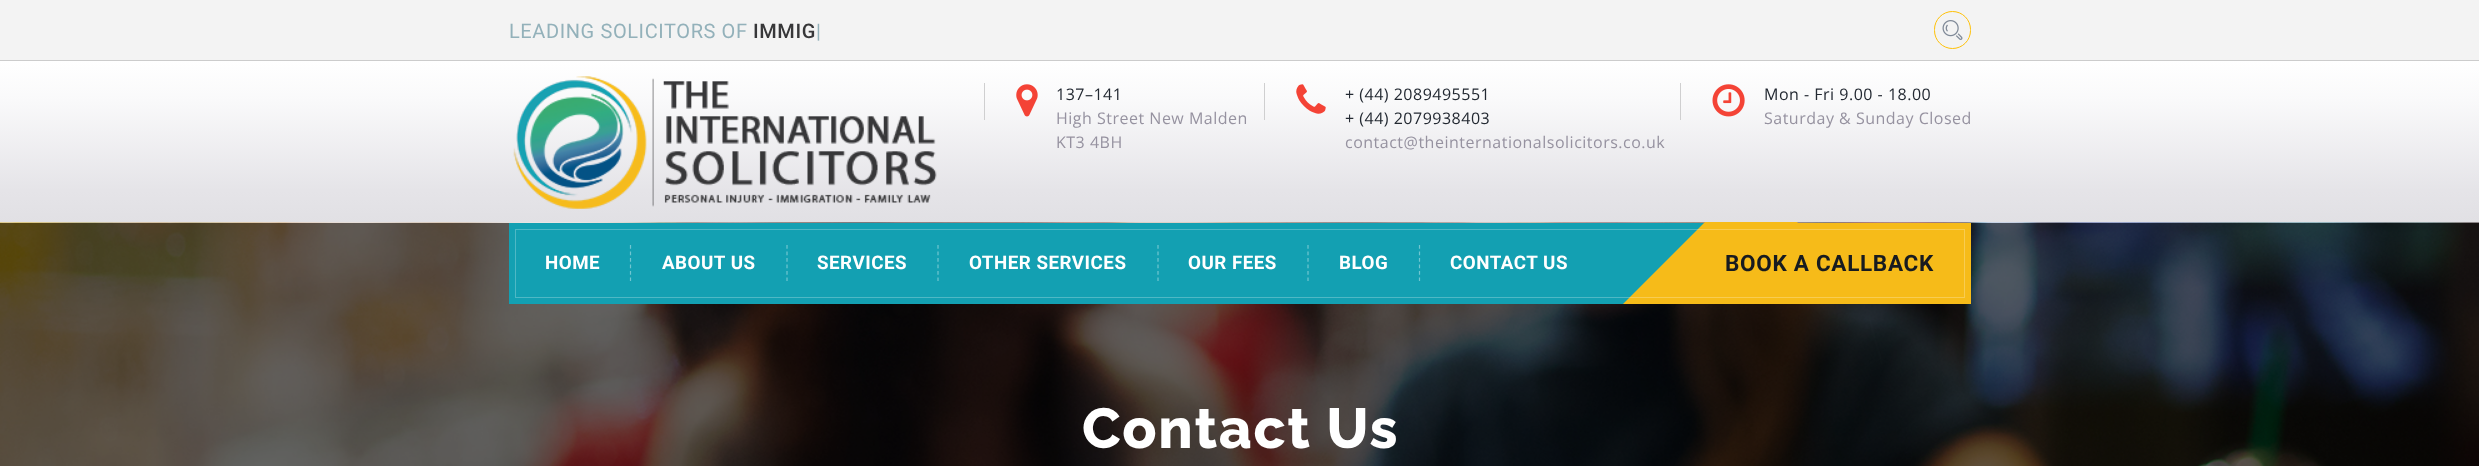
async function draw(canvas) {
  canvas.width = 2479
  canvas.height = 466
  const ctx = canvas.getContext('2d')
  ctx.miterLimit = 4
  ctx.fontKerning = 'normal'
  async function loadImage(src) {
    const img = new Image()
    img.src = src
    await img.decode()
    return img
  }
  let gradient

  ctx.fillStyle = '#f3f3f3'
  ctx.fillRect(0, 0, 2479, 466)
  ctx.fillStyle = '#ccc'
  ctx.fillRect(0, 60, 2479, 1)
  ctx.letterSpacing = '0.6px'
  ctx.font = '20px Roboto'
  ctx.fillStyle = '#93b1ba'
  ctx.fillText('LEADING SOLICITORS OF', 509, 38)
  ctx.font = '500 20px Roboto'
  ctx.fillStyle = '#373739'
  ctx.fillText('IMMIG', 753, 38)
  ctx.font = '20px Roboto'
  ctx.fillStyle = '#93b1ba'
  ctx.fillText('|', 816, 38)
  ctx.beginPath()
  ctx.roundRect(1934.5, 11.5, 36, 37, 18)
  ctx.strokeStyle = '#ffc107'
  ctx.stroke()
  ctx.drawImage(await loadImage('image0.png'), 1942, 20, 21, 20)
  gradient = ctx.createLinearGradient(1240, 61, 1240, 223)
  gradient.addColorStop(0, '#fff')
  gradient.addColorStop(0.25, '#f9f9fa')
  gradient.addColorStop(0.8, '#e5e4e8')
  gradient.addColorStop(1, '#e1e0e4')
  ctx.fillStyle = gradient
  ctx.fillRect(0, 61, 2479, 162)
  ctx.drawImage(await loadImage('image1.png'), 513, 76, 424, 133)
  ctx.fillStyle = '#cfcfd0'
  ctx.fillRect(984, 83, 1, 37)
  ctx.drawImage(await loadImage('image2.png'), 1016, 84, 22, 33)
  ctx.letterSpacing = '0.5px'
  ctx.font = '16px Open Sans'
  ctx.fillStyle = '#232932'
  ctx.fillText('137–141', 1056, 100)
  ctx.fillStyle = '#9692a0'
  ctx.fillText('High Street New Malden', 1056, 124)
  ctx.fillText('KT3 4BH', 1056, 148)
  ctx.fillStyle = '#cfcfd0'
  ctx.fillRect(1264, 83, 1, 37)
  ctx.drawImage(await loadImage('image3.png'), 1296, 84, 30, 30)
  ctx.fillStyle = '#232932'
  ctx.fillText('+ (44) 2089495551', 1345, 100)
  ctx.fillText('+ (44) 2079938403', 1345, 124)
  ctx.fillStyle = '#9692a0'
  ctx.fillText('contact@theinternationalsolicitors.co.uk', 1345, 148)
  ctx.fillStyle = '#cfcfd0'
  ctx.fillRect(1680, 83, 1, 37)
  ctx.drawImage(await loadImage('image4.png'), 1712, 84, 33, 33)
  ctx.fillStyle = '#232932'
  ctx.fillText('Mon - Fri 9.00 - 18.00', 1764, 100)
  ctx.fillStyle = '#9692a0'
  ctx.fillText('Saturday & Sunday Closed', 1764, 124)
  ctx.drawImage(await loadImage('image5.png'), 0, 222, 2479, 244)
  ctx.fillStyle = '#13a0b2'
  ctx.fillRect(509, 223, 1195, 81)
  ctx.fillStyle = '#f6bb19'
  ctx.fillRect(1717, 223, 254, 81)
  ctx.beginPath()
  ctx.moveTo(1705, 222)
  ctx.lineTo(1798, 222)
  ctx.lineTo(1717, 304)
  ctx.lineTo(1623, 304)
  ctx.closePath()
  ctx.fill()
  ctx.strokeStyle = '#ffffff40'
  ctx.strokeRect(515.5, 229.5, 1449, 68)
  ctx.beginPath()
  ctx.moveTo(630.5, 245)
  ctx.lineTo(630.5, 281)
  ctx.strokeStyle = '#71c6d1'
  ctx.lineWidth = 1.2
  ctx.setLineDash([3.75, 2.75])
  ctx.stroke()
  ctx.font = 'bold 18.75px Roboto'
  ctx.fillStyle = '#fff'
  ctx.fillText('HOME', 545, 269)
  ctx.beginPath()
  ctx.moveTo(787, 245)
  ctx.lineTo(787, 281)
  ctx.stroke()
  ctx.fillText('ABOUT US', 662, 269)
  ctx.beginPath()
  ctx.moveTo(938, 245)
  ctx.lineTo(938, 281)
  ctx.stroke()
  ctx.fillText('SERVICES', 817, 269)
  ctx.beginPath()
  ctx.moveTo(1158, 245)
  ctx.lineTo(1158, 281)
  ctx.stroke()
  ctx.fillText('OTHER SERVICES', 969, 269)
  ctx.beginPath()
  ctx.moveTo(1308, 245)
  ctx.lineTo(1308, 281)
  ctx.stroke()
  ctx.fillText('OUR FEES', 1188, 269)
  ctx.beginPath()
  ctx.moveTo(1419.5, 245)
  ctx.lineTo(1419.5, 281)
  ctx.stroke()
  ctx.fillText('BLOG', 1339, 269)
  ctx.fillText('CONTACT US', 1450, 269)
  ctx.letterSpacing = '0.7px'
  ctx.font = 'bold 22.5px Roboto'
  ctx.fillStyle = '#171b20'
  ctx.fillText('BOOK A CALLBACK', 1725, 271)
  ctx.letterSpacing = '1.75px'
  ctx.font = '800 56.25px Raleway'
  ctx.fillStyle = '#fff'
  ctx.fillText('Contact Us', 1082, 448)
}

draw(document.querySelector('canvas'))
